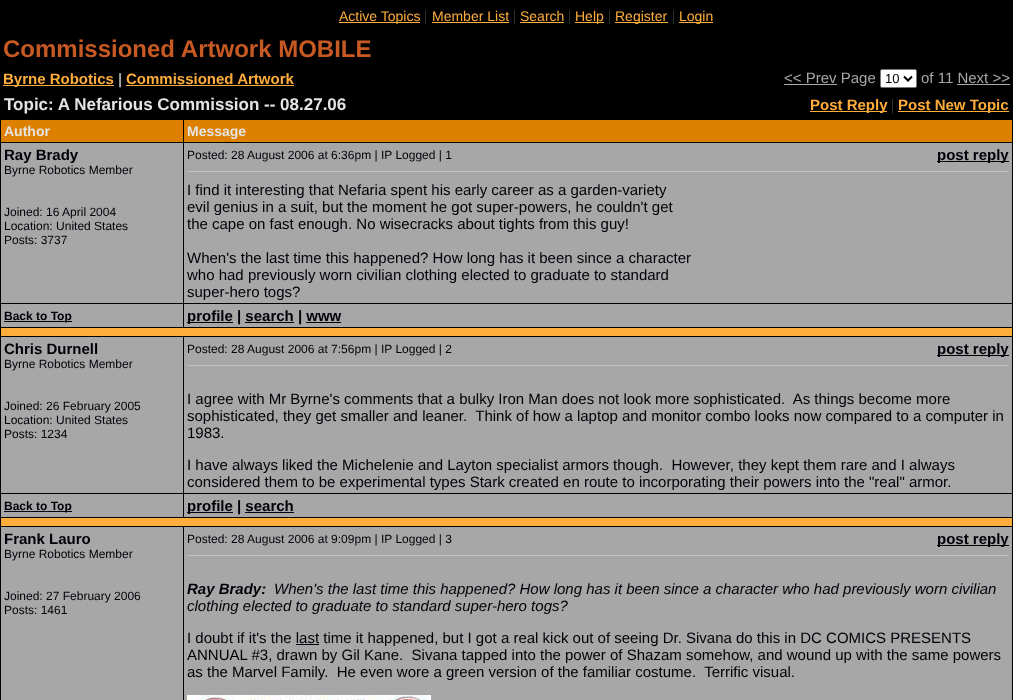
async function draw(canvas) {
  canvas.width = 1013
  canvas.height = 700
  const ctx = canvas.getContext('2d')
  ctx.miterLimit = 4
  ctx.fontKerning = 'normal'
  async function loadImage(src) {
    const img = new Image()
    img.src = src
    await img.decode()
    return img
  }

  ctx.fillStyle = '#000'
  ctx.fillRect(0, 0, 1013, 700)
  ctx.fillStyle = '#ffae3b'
  ctx.fillRect(339, 22, 81, 1)
  ctx.font = '14px Liberation Sans'
  ctx.fillText('Active Topics', 339, 21)
  ctx.font = '16px Liberation Serif'
  ctx.fillStyle = '#3c3c3c'
  ctx.fillText('|', 424, 21)
  ctx.font = '14px Liberation Sans'
  ctx.fillStyle = '#ffae3b'
  ctx.fillText('Member List', 432, 21)
  ctx.fillRect(432, 22, 77, 1)
  ctx.font = '16px Liberation Serif'
  ctx.fillStyle = '#3c3c3c'
  ctx.fillText('|', 513, 21)
  ctx.font = '14px Liberation Sans'
  ctx.fillStyle = '#ffae3b'
  ctx.fillText('Search', 520, 21)
  ctx.fillRect(520, 22, 44, 1)
  ctx.font = '16px Liberation Serif'
  ctx.fillStyle = '#3c3c3c'
  ctx.fillText('|', 568, 21)
  ctx.fillStyle = '#ffae3b'
  ctx.fillRect(575, 22, 29, 1)
  ctx.font = '14px Liberation Sans'
  ctx.fillText('Help', 575, 21)
  ctx.font = '16px Liberation Serif'
  ctx.fillStyle = '#3c3c3c'
  ctx.fillText('|', 608, 21)
  ctx.fillStyle = '#ffae3b'
  ctx.fillRect(615, 22, 53, 1)
  ctx.font = '14px Liberation Sans'
  ctx.fillText('Register', 615, 21)
  ctx.font = '16px Liberation Serif'
  ctx.fillStyle = '#3c3c3c'
  ctx.fillText('|', 672, 21)
  ctx.fillStyle = '#ffae3b'
  ctx.fillRect(679, 22, 34, 1)
  ctx.font = '14px Liberation Sans'
  ctx.fillText('Login', 679, 21)
  ctx.font = 'bold 24px Liberation Sans'
  ctx.fillStyle = '#c75923'
  ctx.fillText('Commissioned Artwork MOBILE', 3, 57)
  ctx.fillStyle = '#ffae3b'
  ctx.fillRect(3, 85, 111, 1)
  ctx.font = 'bold 15px Liberation Sans'
  ctx.fillText('Byrne Robotics', 3, 84)
  ctx.fillStyle = '#a7a7a7'
  ctx.fillText('|', 118, 84)
  ctx.fillStyle = '#ffae3b'
  ctx.fillText('Commissioned Artwork', 126, 84)
  ctx.fillRect(126, 85, 168, 1)
  ctx.fillStyle = '#a7a7a7'
  ctx.fillRect(784, 84, 53, 1)
  ctx.font = '15px Liberation Sans'
  ctx.fillText('<< Prev Page', 784, 83)
  ctx.fillStyle = '#fff'
  ctx.beginPath()
  ctx.roundRect(880.5, 69.5, 36, 18, 1.5)
  ctx.fill()
  ctx.strokeStyle = '#767676'
  ctx.stroke()
  ctx.beginPath()
  ctx.moveTo(904, 76.5)
  ctx.lineTo(908, 80.5)
  ctx.lineTo(912, 76.5)
  ctx.strokeStyle = '#000'
  ctx.lineWidth = 2
  ctx.stroke()
  ctx.font = '13px Liberation Sans'
  ctx.fillStyle = '#000'
  ctx.fillText('10', 885, 83)
  ctx.font = '15px Liberation Sans'
  ctx.fillStyle = '#a7a7a7'
  ctx.fillText('of 11 Next >>', 921, 83)
  ctx.fillRect(957, 84, 53, 1)
  ctx.font = 'bold 17px Liberation Sans'
  ctx.fillStyle = '#e4e4e4'
  ctx.fillText('Topic: A Nefarious Commission -- 08.27.06', 4, 110)
  ctx.fillStyle = '#ffae3b'
  ctx.fillRect(810, 111, 77, 1)
  ctx.font = 'bold 15px Liberation Sans'
  ctx.fillText('Post Reply', 810, 110)
  ctx.font = '16px Liberation Serif'
  ctx.fillStyle = '#3c3c3c'
  ctx.fillText('|', 891, 110)
  ctx.fillStyle = '#ffae3b'
  ctx.fillRect(898, 111, 111, 1)
  ctx.font = 'bold 15px Liberation Sans'
  ctx.fillText('Post New Topic', 898, 110)
  ctx.fillStyle = '#dd8000'
  ctx.fillRect(1, 120, 182, 22)
  ctx.font = 'bold 14px Liberation Sans'
  ctx.fillStyle = '#e4e4e4'
  ctx.fillText('Author', 4, 136)
  ctx.fillStyle = '#dd8000'
  ctx.fillRect(184, 120, 828, 22)
  ctx.fillStyle = '#e4e4e4'
  ctx.fillText('Message', 187, 136)
  ctx.fillStyle = '#a7a7a7'
  ctx.fillRect(1, 143, 182, 160)
  ctx.font = 'bold 15px Liberation Sans'
  ctx.fillStyle = '#000008'
  ctx.fillText('Ray Brady', 4, 160)
  ctx.font = '12px Liberation Sans'
  ctx.fillText('Byrne Robotics Member', 4, 174)
  ctx.fillText('Joined: 16 April 2004', 4, 216)
  ctx.fillText('Location: United States', 4, 230)
  ctx.fillText('Posts: 3737', 4, 244)
  ctx.fillStyle = '#a7a7a7'
  ctx.fillRect(184, 143, 828, 160)
  ctx.fillStyle = '#000008'
  ctx.fillText('Posted: 28 August 2006 at 6:36pm | IP Logged | 1', 187, 159)
  ctx.fillRect(937, 161, 72, 1)
  ctx.font = 'bold 15px Liberation Sans'
  ctx.fillText('post reply', 937, 160)
  ctx.fillStyle = '#c0c0c0'
  ctx.fillRect(187, 171, 822, 1)
  ctx.font = '15px Liberation Sans'
  ctx.fillStyle = '#000008'
  ctx.fillText('I find it interesting that Nefaria spent his early career as a garden-variety', 187, 195)
  ctx.fillText('evil genius in a suit, but the moment he got super-powers, he couldn\'t get', 187, 212)
  ctx.fillText('the cape on fast enough. No wisecracks about tights from this guy!', 187, 229)
  ctx.fillText('When\'s the last time this happened? How long has it been since a character', 187, 263)
  ctx.fillText('who had previously worn civilian clothing elected to graduate to standard', 187, 280)
  ctx.fillText('super-hero togs?', 187, 297)
  ctx.fillStyle = '#a7a7a7'
  ctx.fillRect(1, 304, 182, 23)
  ctx.fillStyle = '#000008'
  ctx.fillRect(4, 321, 68, 1)
  ctx.font = 'bold 12px Liberation Sans'
  ctx.fillText('Back to Top', 4, 320)
  ctx.fillStyle = '#a7a7a7'
  ctx.fillRect(184, 304, 828, 23)
  ctx.fillStyle = '#000008'
  ctx.fillRect(187, 322, 46, 1)
  ctx.font = 'bold 15px Liberation Sans'
  ctx.fillText('profile | search | www', 187, 321)
  ctx.fillRect(245, 322, 49, 1)
  ctx.fillRect(306, 322, 35, 1)
  ctx.fillStyle = '#ffae3b'
  ctx.fillRect(1, 328, 1011, 8)
  ctx.fillStyle = '#a7a7a7'
  ctx.fillRect(1, 337, 182, 156)
  ctx.fillStyle = '#000008'
  ctx.fillText('Chris Durnell', 4, 354)
  ctx.font = '12px Liberation Sans'
  ctx.fillText('Byrne Robotics Member', 4, 368)
  ctx.fillText('Joined: 26 February 2005', 4, 410)
  ctx.fillText('Location: United States', 4, 424)
  ctx.fillText('Posts: 1234', 4, 438)
  ctx.fillStyle = '#a7a7a7'
  ctx.fillRect(184, 337, 828, 156)
  ctx.fillStyle = '#000008'
  ctx.fillText('Posted: 28 August 2006 at 7:56pm | IP Logged | 2', 187, 353)
  ctx.fillRect(937, 355, 72, 1)
  ctx.font = 'bold 15px Liberation Sans'
  ctx.fillText('post reply', 937, 354)
  ctx.fillStyle = '#c0c0c0'
  ctx.fillRect(187, 365, 822, 1)
  ctx.font = '15px Liberation Sans'
  ctx.fillStyle = '#000008'
  ctx.fillText('I agree with Mr Byrne\'s comments that a bulky Iron Man does not look more sophisticated.  As things become more', 187, 404)
  ctx.fillText('sophisticated, they get smaller and leaner.  Think of how a laptop and monitor combo looks now compared to a computer in', 187, 421)
  ctx.fillText('1983.', 187, 438)
  ctx.fillText('I have always liked the Michelenie and Layton specialist armors though.  However, they kept them rare and I always', 187, 470)
  ctx.fillText('considered them to be experimental types Stark created en route to incorporating their powers into the "real" armor.', 187, 487)
  ctx.fillStyle = '#a7a7a7'
  ctx.fillRect(1, 494, 182, 23)
  ctx.fillStyle = '#000008'
  ctx.fillRect(4, 511, 68, 1)
  ctx.font = 'bold 12px Liberation Sans'
  ctx.fillText('Back to Top', 4, 510)
  ctx.fillStyle = '#a7a7a7'
  ctx.fillRect(184, 494, 828, 23)
  ctx.fillStyle = '#000008'
  ctx.fillRect(187, 512, 46, 1)
  ctx.font = 'bold 15px Liberation Sans'
  ctx.fillText('profile | search', 187, 511)
  ctx.fillRect(245, 512, 49, 1)
  ctx.fillStyle = '#ffae3b'
  ctx.fillRect(1, 518, 1011, 8)
  ctx.fillStyle = '#a7a7a7'
  ctx.fillRect(1, 527, 182, 173)
  ctx.fillStyle = '#000008'
  ctx.fillText('Frank Lauro', 4, 544)
  ctx.font = '12px Liberation Sans'
  ctx.fillText('Byrne Robotics Member', 4, 558)
  ctx.fillText('Joined: 27 February 2006', 4, 600)
  ctx.fillText('Posts: 1461', 4, 614)
  ctx.fillStyle = '#a7a7a7'
  ctx.fillRect(184, 527, 828, 173)
  ctx.fillStyle = '#000008'
  ctx.fillText('Posted: 28 August 2006 at 9:09pm | IP Logged | 3', 187, 543)
  ctx.fillRect(937, 545, 72, 1)
  ctx.font = 'bold 15px Liberation Sans'
  ctx.fillText('post reply', 937, 544)
  ctx.fillStyle = '#c0c0c0'
  ctx.fillRect(187, 555, 822, 1)
  ctx.font = 'italic bold 15px Liberation Sans'
  ctx.fillStyle = '#000008'
  ctx.fillText('Ray Brady:', 187, 594)
  ctx.font = 'italic 15px Liberation Sans'
  ctx.fillText('When\'s the last time this happened? How long has it been since a character who had previously worn civilian', 274, 594)
  ctx.fillText('clothing elected to graduate to standard super-hero togs?', 187, 611)
  ctx.font = '15px Liberation Sans'
  ctx.fillText('I doubt if it\'s the last time it happened, but I got a real kick out of seeing Dr. Sivana do this in DC COMICS PRESENTS', 187, 643)
  ctx.fillRect(296, 644, 23, 1)
  ctx.fillText('ANNUAL #3, drawn by Gil Kane.  Sivana tapped into the power of Shazam somehow, and wound up with the same powers', 187, 660)
  ctx.fillText('as the Marvel Family.  He even wore a green version of the familiar costume.  Terrific visual.', 187, 677)
  ctx.drawImage(await loadImage('image0.png'), 187, 695, 244, 5)
}

draw(document.querySelector('canvas'))
